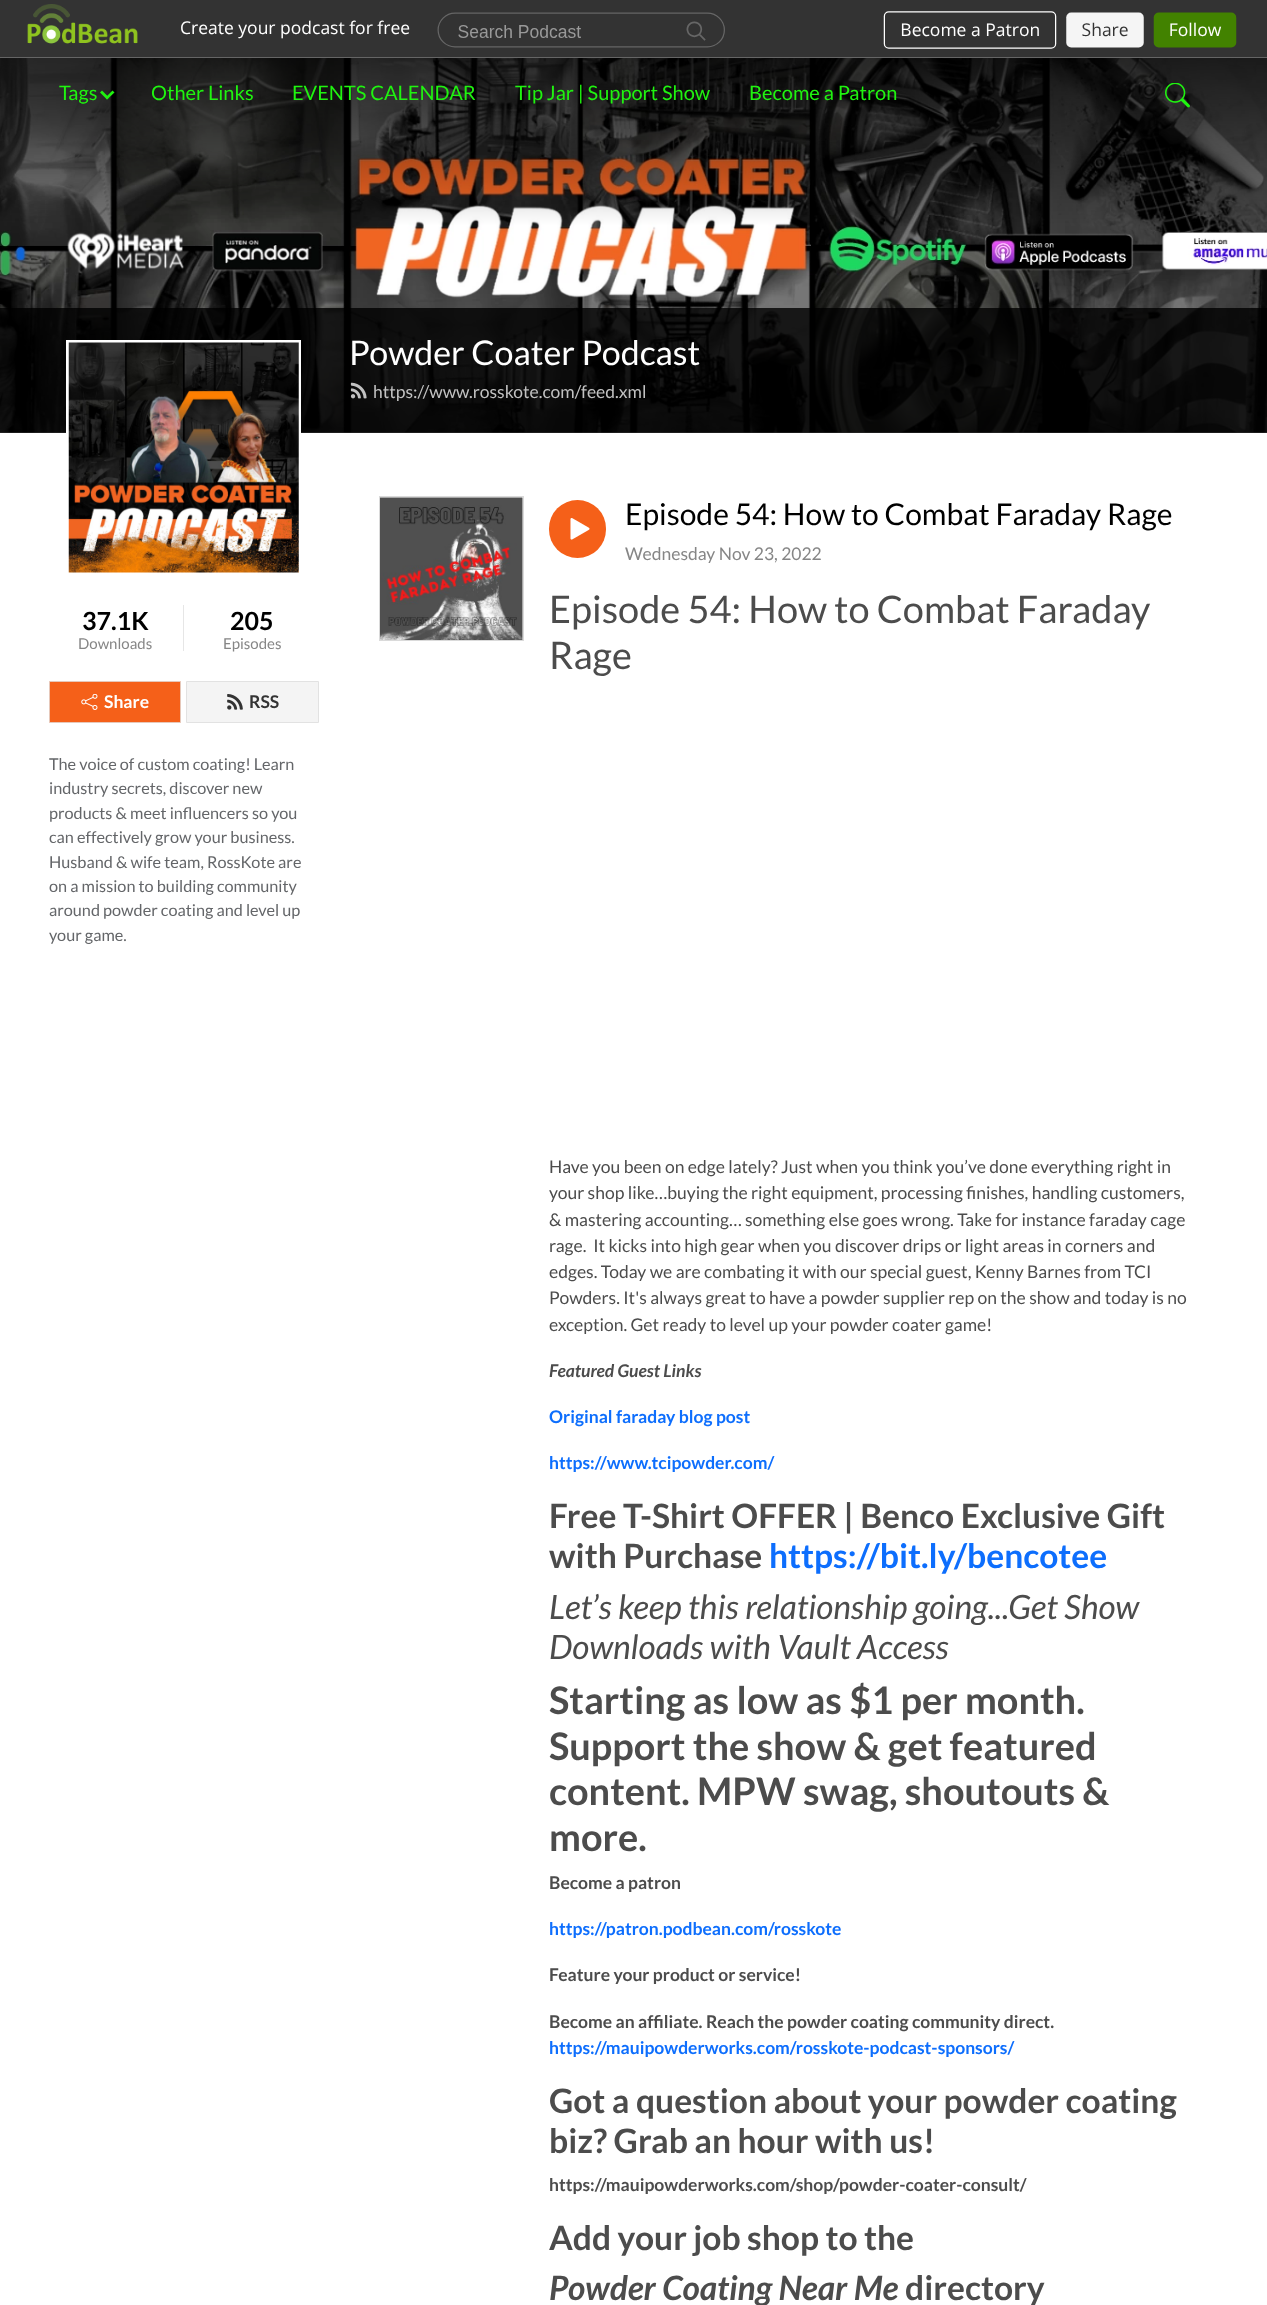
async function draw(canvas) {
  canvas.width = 1267
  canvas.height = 2305
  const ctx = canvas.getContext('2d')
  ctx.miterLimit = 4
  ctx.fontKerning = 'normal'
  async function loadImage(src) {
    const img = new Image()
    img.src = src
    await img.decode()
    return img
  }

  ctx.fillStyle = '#fff'
  ctx.fillRect(0, 0, 1267, 2305)
  ctx.fillStyle = '#333'
  ctx.fillRect(0, 0, 1267, 4)
  ctx.drawImage(await loadImage('image0.png'), 0, 4, 1267, 54)
  ctx.drawImage(await loadImage('image2.png'), 0, 58, 1267, 375)
  ctx.font = '20px Lato'
  ctx.fillStyle = '#20f310'
  ctx.fillText('Tags', 59, 100)
  ctx.beginPath()
  ctx.moveTo(112.5, 90.5)
  ctx.lineTo(114.5, 92.5)
  ctx.lineTo(107, 99.5)
  ctx.lineTo(105.5, 97.5)
  ctx.closePath()
  ctx.fill()
  ctx.beginPath()
  ctx.moveTo(102, 90.5)
  ctx.lineTo(109, 97.5)
  ctx.lineTo(107, 99.5)
  ctx.lineTo(100, 92.5)
  ctx.closePath()
  ctx.fill()
  ctx.fillText('Other Links', 151, 100)
  ctx.fillText('EVENTS CALENDAR', 292, 100)
  ctx.fillText('Tip Jar | Support Show', 515, 100)
  ctx.fillText('Become a Patron', 749, 100)
  ctx.drawImage(await loadImage('image1.png'), 1165, 83, 25, 25)
  ctx.fillStyle = '#000000cc'
  ctx.fillRect(0, 308, 1267, 125)
  ctx.font = '34px Lato'
  ctx.fillStyle = '#fff'
  ctx.fillText('Powder Coater Podcast', 349, 365)
  ctx.drawImage(await loadImage('image3.png'), 350, 382, 17, 17)
  ctx.font = '17.5px Lato'
  ctx.fillStyle = '#c2c2c2'
  ctx.fillText('https://www.rosskote.com/feed.xml', 373, 398)
  ctx.strokeStyle = '#fff'
  ctx.lineWidth = 3
  ctx.strokeRect(67.5, 341.5, 232, 232)
  ctx.drawImage(await loadImage('image4.png'), 68, 342, 231, 231)
  ctx.font = 'bold 25px Lato'
  ctx.fillStyle = '#000'
  ctx.fillText('37.1K', 82, 630)
  ctx.font = '15px Lato'
  ctx.fillStyle = '#868686'
  ctx.fillText('Downloads', 78, 649)
  ctx.fillStyle = '#e6e6e6'
  ctx.fillRect(183, 605, 1, 46)
  ctx.font = 'bold 25px Lato'
  ctx.fillStyle = '#000'
  ctx.fillText('205', 230, 630)
  ctx.font = '15px Lato'
  ctx.fillStyle = '#868686'
  ctx.fillText('Episodes', 223, 649)
  ctx.fillStyle = '#f56019'
  ctx.beginPath()
  ctx.rect(49.5, 681.5, 131, 41)
  ctx.fill()
  ctx.strokeStyle = '#e6c8ba'
  ctx.lineWidth = 1
  ctx.stroke()
  ctx.drawImage(await loadImage('image5.png'), 81, 694, 17, 16)
  ctx.font = 'bold 17.5px Lato'
  ctx.fillStyle = '#fff'
  ctx.fillText('Share', 104, 708)
  ctx.fillStyle = '#f4f4f4'
  ctx.beginPath()
  ctx.rect(186.5, 681.5, 132, 41)
  ctx.fill()
  ctx.strokeStyle = '#e2e2e2'
  ctx.stroke()
  ctx.drawImage(await loadImage('image6.png'), 227, 694, 16, 16)
  ctx.fillStyle = '#333'
  ctx.fillText('RSS', 249, 708)
  ctx.font = '16.25px Lato'
  ctx.fillStyle = '#646669'
  ctx.fillText('The voice of custom coating! Learn', 49, 770)
  ctx.fillText('industry secrets, discover new', 49, 794)
  ctx.fillText('products & meet influencers so you', 49, 819)
  ctx.fillText('can effectively grow your business.', 49, 843)
  ctx.fillText('Husband & wife team, RossKote are', 49, 868)
  ctx.fillText('on a mission to building community', 49, 892)
  ctx.fillText('around powder coating and level up', 49, 916)
  ctx.fillText('your game.', 49, 941)
  ctx.strokeStyle = '#dadada'
  ctx.strokeRect(379.5, 496.5, 144, 144)
  ctx.drawImage(await loadImage('image7.png'), 380, 497, 143, 143)
  ctx.fillStyle = '#f56019'
  ctx.beginPath()
  ctx.roundRect(549, 500, 57, 58, 28.5)
  ctx.fill()
  ctx.drawImage(await loadImage('image8.png'), 570, 518, 20, 22)
  ctx.font = '30px Lato'
  ctx.fillStyle = '#000'
  ctx.fillText('Episode 54: How to Combat Faraday Rage', 625, 525)
  ctx.font = '17.5px Lato'
  ctx.fillStyle = '#868686'
  ctx.fillText('Wednesday Nov 23, 2022', 625, 560)
  ctx.font = '37.9px Lato'
  ctx.fillStyle = '#4c4c4c'
  ctx.fillText('Episode 54: How to Combat Faraday', 549, 623)
  ctx.fillText('Rage', 549, 669)
  ctx.font = '17.5px Lato'
  ctx.fillText('Have you been on edge lately? Just when you think you’ve done everything right in', 549, 1173)
  ctx.fillText('your shop like…buying the right equipment, processing finishes, handling customers,', 549, 1199)
  ctx.fillText('& mastering accounting… something else goes wrong. Take for instance faraday cage', 549, 1226)
  ctx.fillText('rage.  It kicks into high gear when you discover drips or light areas in corners and', 549, 1252)
  ctx.fillText('edges. Today we are combating it with our special guest, Kenny Barnes from TCI', 549, 1278)
  ctx.fillText('Powders. It\'s always great to have a powder supplier rep on the show and today is no', 549, 1304)
  ctx.fillText('exception. Get ready to level up your powder coater game!', 549, 1331)
  ctx.font = 'italic bold 17.5px Lato'
  ctx.fillText('Featured Guest Links', 549, 1377)
  ctx.font = 'bold 17.5px Lato'
  ctx.fillStyle = '#0d6efd'
  ctx.fillText('Original faraday blog post', 549, 1423)
  ctx.fillText('https://www.tcipowder.com/', 549, 1469)
  ctx.font = 'bold 33.6px Lato'
  ctx.fillStyle = '#4c4c4c'
  ctx.fillText('Free T-Shirt OFFER | Benco Exclusive Gift', 549, 1528)
  ctx.fillText('with Purchase', 549, 1568)
  ctx.fillStyle = '#0d6efd'
  ctx.fillText('https://bit.ly/bencotee', 769, 1568)
  ctx.font = 'italic 33.6px Lato'
  ctx.fillStyle = '#4c4c4c'
  ctx.fillText('Let’s keep this relationship going...Get Show', 549, 1619)
  ctx.fillText('Downloads with Vault Access', 549, 1659)
  ctx.font = 'bold 37.9px Lato'
  ctx.fillText('Starting as low as $1 per month.', 549, 1714)
  ctx.fillText('Support the show & get featured', 549, 1760)
  ctx.fillText('content. MPW swag, shoutouts &', 549, 1805)
  ctx.fillText('more.', 549, 1851)
  ctx.font = 'bold 17.5px Lato'
  ctx.fillText('Become a patron', 549, 1889)
  ctx.fillStyle = '#0d6efd'
  ctx.fillText('https://patron.podbean.com/rosskote', 549, 1935)
  ctx.fillStyle = '#4c4c4c'
  ctx.fillText('Feature your product or service!', 549, 1981)
  ctx.fillText('Become an affiliate. Reach the powder coating community direct.', 549, 2028)
  ctx.fillStyle = '#0d6efd'
  ctx.fillText('https://mauipowderworks.com/rosskote-podcast-sponsors/', 549, 2054)
  ctx.font = 'bold 33.6px Lato'
  ctx.fillStyle = '#4c4c4c'
  ctx.fillText('Got a question about your powder coating', 549, 2113)
  ctx.fillText('biz? Grab an hour with us!', 549, 2153)
  ctx.font = 'bold 17.5px Lato'
  ctx.fillText('https://mauipowderworks.com/shop/powder-coater-consult/', 549, 2191)
  ctx.font = 'bold 33.6px Lato'
  ctx.fillText('Add your job shop to the', 549, 2250)
  ctx.font = 'italic bold 33.6px Lato'
  ctx.fillText('Powder Coating Near Me', 549, 2300)
  ctx.font = 'bold 33.6px Lato'
  ctx.fillText('directory', 905, 2300)
}

draw(document.querySelector('canvas'))
